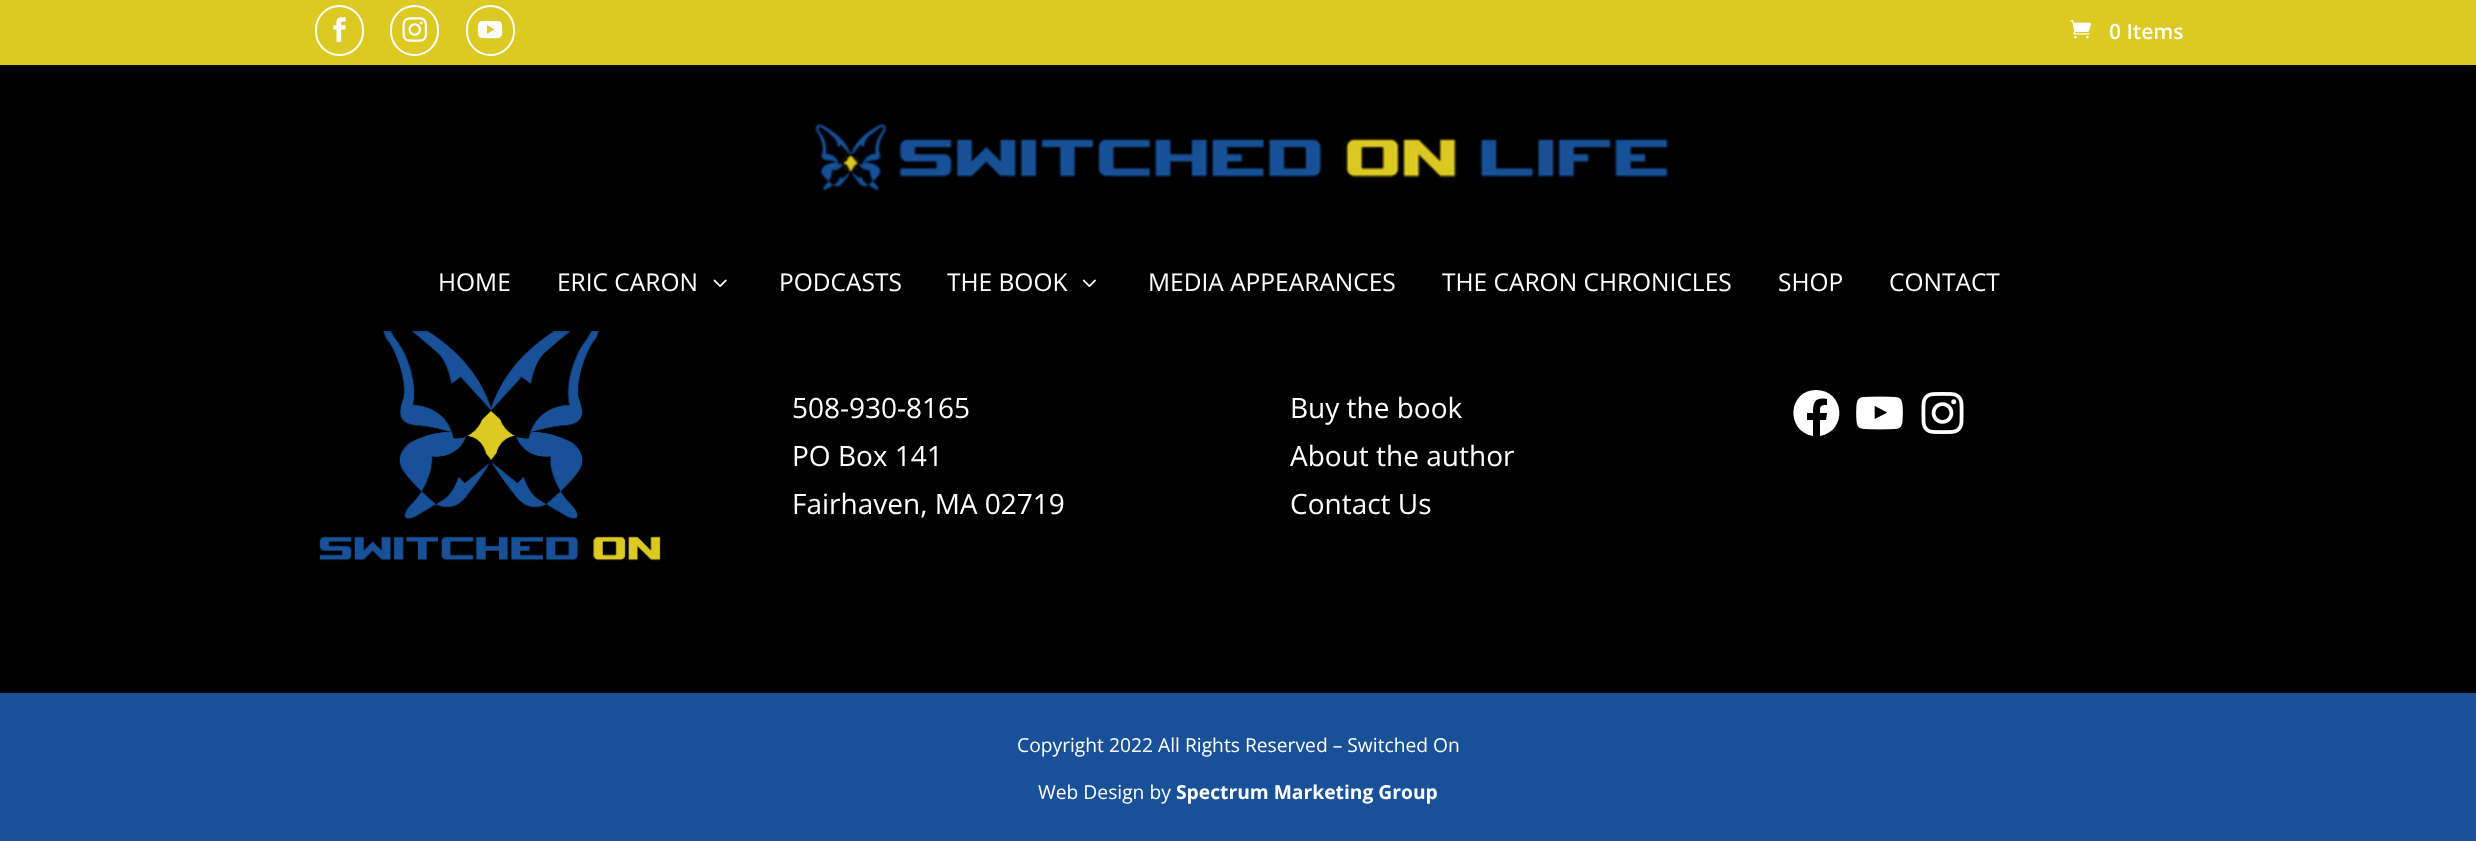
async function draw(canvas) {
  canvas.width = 2476
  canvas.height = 841
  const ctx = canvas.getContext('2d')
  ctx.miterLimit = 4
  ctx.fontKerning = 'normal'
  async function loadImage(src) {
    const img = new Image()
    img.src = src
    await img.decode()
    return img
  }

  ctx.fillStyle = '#000'
  ctx.fillRect(0, 0, 2476, 841)
  ctx.fillStyle = '#dcca23'
  ctx.fillRect(0, 0, 2476, 65)
  ctx.beginPath()
  ctx.roundRect(316, 6, 47, 49, 23.5)
  ctx.strokeStyle = '#fff'
  ctx.lineWidth = 2
  ctx.stroke()
  ctx.drawImage(await loadImage('image0.png'), 333, 17, 13, 25)
  ctx.beginPath()
  ctx.roundRect(391, 6, 47, 49, 23.5)
  ctx.stroke()
  ctx.drawImage(await loadImage('image1.png'), 402, 17, 25, 25)
  ctx.beginPath()
  ctx.roundRect(467, 6, 47, 49, 23.5)
  ctx.stroke()
  ctx.drawImage(await loadImage('image2.png'), 477, 20, 26, 19)
  ctx.drawImage(await loadImage('image3.png'), 2070, 20, 22, 19)
  ctx.font = '600 21px Open Sans'
  ctx.fillStyle = '#fff'
  ctx.fillText('0 Items', 2109, 39)
  ctx.drawImage(await loadImage('image7.png'), 319, 331, 342, 230)
  ctx.fillStyle = '#0000001a'
  ctx.fillRect(383, 331, 216, 2)
  ctx.drawImage(await loadImage('image4.png'), 814, 123, 855, 69)
  ctx.font = '24.5px Open Sans'
  ctx.fillStyle = '#fff'
  ctx.fillText('HOME', 438, 291)
  ctx.fillText('ERIC CARON', 557, 291)
  ctx.drawImage(await loadImage('image5.png'), 713, 279, 14, 8)
  ctx.fillText('PODCASTS', 779, 291)
  ctx.fillText('THE BOOK', 947, 291)
  ctx.drawImage(await loadImage('image6.png'), 1082, 279, 14, 8)
  ctx.fillText('MEDIA APPEARANCES', 1148, 291)
  ctx.fillText('THE CARON CHRONICLES', 1442, 291)
  ctx.fillText('SHOP', 1778, 291)
  ctx.fillText('CONTACT', 1889, 291)
  ctx.font = '28px Open Sans'
  ctx.fillText('508-930-8165', 792, 418)
  ctx.fillText('PO Box 141', 792, 466)
  ctx.fillText('Fairhaven, MA 02719', 792, 514)
  ctx.fillText('Buy the book', 1290, 418)
  ctx.fillText('About the author', 1290, 466)
  ctx.fillText('Contact Us', 1290, 514)
  ctx.beginPath()
  ctx.moveTo(1816, 390)
  ctx.bezierCurveTo(1788, 390, 1785, 431, 1813, 436)
  ctx.lineTo(1813, 420)
  ctx.lineTo(1807, 420)
  ctx.lineTo(1807, 413)
  ctx.lineTo(1813, 413)
  ctx.bezierCurveTo(1813, 402, 1815, 397, 1827, 399)
  ctx.lineTo(1827, 405)
  ctx.bezierCurveTo(1820, 405, 1820, 406, 1820, 413)
  ctx.lineTo(1827, 413)
  ctx.lineTo(1826, 420)
  ctx.lineTo(1820, 420)
  ctx.lineTo(1820, 436)
  ctx.bezierCurveTo(1848, 431, 1845, 390, 1816, 390)
  ctx.closePath()
  ctx.fill()
  ctx.drawImage(await loadImage('image8.png'), 1856, 396, 47, 34)
  ctx.drawImage(await loadImage('image9.png'), 1921, 392, 43, 42)
  ctx.fillStyle = '#185197'
  ctx.fillRect(0, 693, 2476, 148)
  ctx.font = '19.25px Open Sans'
  ctx.fillStyle = '#fff'
  ctx.fillText('Copyright 2022 All Rights Reserved – Switched On', 1017, 752)
  ctx.fillText('Web Design by', 1038, 799)
  ctx.font = 'bold 19.25px Open Sans'
  ctx.fillText('Spectrum Marketing Group', 1176, 799)
}

draw(document.querySelector('canvas'))
